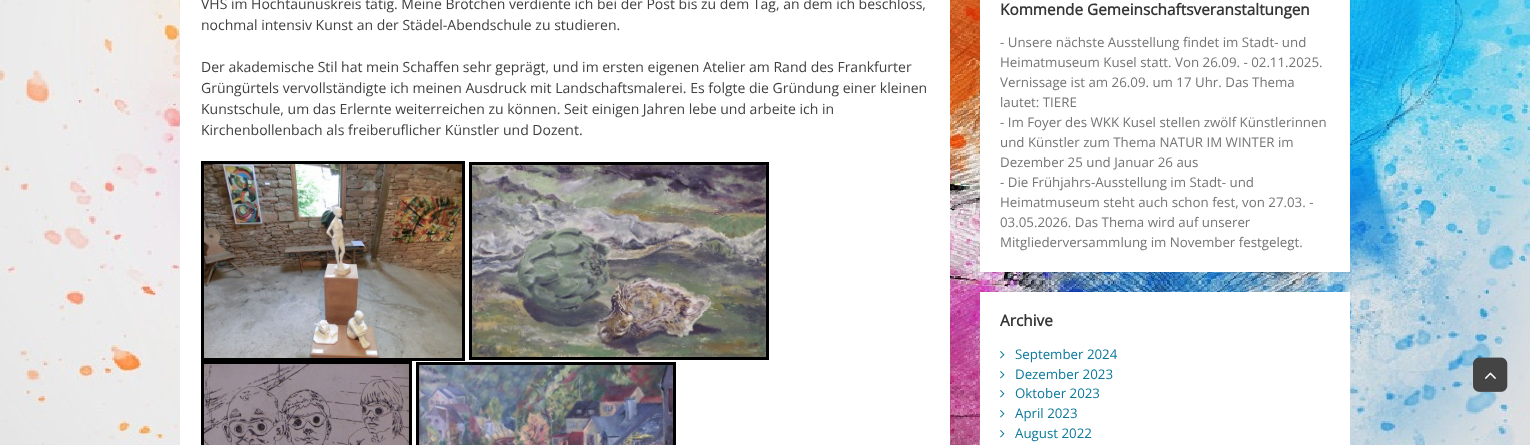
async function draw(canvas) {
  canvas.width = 1530
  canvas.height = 445
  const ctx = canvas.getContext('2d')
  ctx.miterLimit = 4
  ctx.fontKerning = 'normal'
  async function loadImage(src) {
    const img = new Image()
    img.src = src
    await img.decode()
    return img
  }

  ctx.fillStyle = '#fff'
  ctx.fillRect(0, 0, 1530, 445)
  ctx.drawImage(await loadImage('image0.png'), 0, 0, 1530, 445)
  ctx.fillRect(180, 0, 770, 445)
  ctx.font = '14px Open Sans'
  ctx.fillStyle = '#404040'
  ctx.fillText('VHS im Hochtaunuskreis tätig. Meine Brötchen verdiente ich bei der Post bis zu dem Tag, an dem ich beschloss,', 201, 9)
  ctx.fillText('nochmal intensiv Kunst an der Städel-Abendschule zu studieren.', 201, 30)
  ctx.fillText('Der akademische Stil hat mein Schaffen sehr geprägt, und im ersten eigenen Atelier am Rand des Frankfurter', 201, 72)
  ctx.fillText('Grüngürtels vervollständigte ich meinen Ausdruck mit Landschaftsmalerei. Es folgte die Gründung einer kleinen', 201, 93)
  ctx.fillText('Kunstschule, um das Erlernte weiterreichen zu können. Seit einigen Jahren lebe und arbeite ich in', 201, 114)
  ctx.fillText('Kirchenbollenbach als freiberuflicher Künstler und Dozent.', 201, 135)
  ctx.strokeStyle = '#000'
  ctx.lineWidth = 3
  ctx.strokeRect(202.5, 162.5, 261, 197)
  ctx.strokeRect(470.5, 163.5, 297, 195)
  ctx.drawImage(await loadImage('image1.png'), 204, 164, 258, 194)
  ctx.drawImage(await loadImage('image2.png'), 472, 165, 294, 192)
  ctx.strokeRect(202.5, 362.5, 208, 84)
  ctx.strokeRect(417.5, 363.5, 257, 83)
  ctx.drawImage(await loadImage('image3.png'), 204, 364, 205, 81)
  ctx.drawImage(await loadImage('image4.png'), 419, 365, 254, 80)
  ctx.fillStyle = '#0000000f'
  ctx.filter = 'blur(0.5px)'
  ctx.beginPath()
  ctx.rect(980, -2, 370, 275)
  ctx.fill()
  ctx.filter = 'none'
  ctx.fillStyle = '#fff'
  ctx.fillRect(980, 0, 370, 272)
  ctx.font = 'bold 15.35px Open Sans'
  ctx.fillStyle = '#353535'
  ctx.fillText('Kommende Gemeinschaftsveranstaltungen', 1000, 15)
  ctx.font = '13.3px Open Sans'
  ctx.fillStyle = '#757575'
  ctx.fillText('- Unsere nächste Ausstellung findet im Stadt- und', 1000, 47)
  ctx.fillText('Heimatmuseum Kusel statt. Von 26.09. - 02.11.2025.', 1000, 67)
  ctx.fillText('Vernissage ist am 26.09. um 17 Uhr. Das Thema', 1000, 87)
  ctx.fillText('lautet: TIERE', 1000, 107)
  ctx.fillText('- Im Foyer des WKK Kusel stellen zwölf Künstlerinnen', 1000, 127)
  ctx.fillText('und Künstler zum Thema NATUR IM WINTER im', 1000, 147)
  ctx.fillText('Dezember 25 und Januar 26 aus', 1000, 167)
  ctx.fillText('- Die Frühjahrs-Ausstellung im Stadt- und', 1000, 187)
  ctx.fillText('Heimatmuseum steht auch schon fest, von 27.03. -', 1000, 207)
  ctx.fillText('03.05.2026. Das Thema wird auf unserer', 1000, 227)
  ctx.fillText('Mitgliederversammlung im November festgelegt.', 1000, 247)
  ctx.fillStyle = '#fff'
  ctx.fillRect(980, 292, 370, 153)
  ctx.font = 'bold 15.35px Open Sans'
  ctx.fillStyle = '#353535'
  ctx.fillText('Archive', 1000, 326)
  ctx.drawImage(await loadImage('image5.png'), 1000, 351, 5, 8)
  ctx.font = '13.3px Open Sans'
  ctx.fillStyle = '#0b789c'
  ctx.fillText('September 2024', 1015, 359)
  ctx.drawImage(await loadImage('image5.png'), 1000, 371, 5, 8)
  ctx.fillText('Dezember 2023', 1015, 379)
  ctx.drawImage(await loadImage('image5.png'), 1000, 390, 5, 8)
  ctx.fillText('Oktober 2023', 1015, 398)
  ctx.drawImage(await loadImage('image5.png'), 1000, 410, 5, 8)
  ctx.fillText('April 2023', 1015, 418)
  ctx.drawImage(await loadImage('image5.png'), 1000, 430, 5, 8)
  ctx.fillText('August 2022', 1015, 438)
  ctx.drawImage(await loadImage('image6.png'), 1473, 357, 35, 35)
  ctx.drawImage(await loadImage('image7.png'), 1484, 372, 12, 7)
}

draw(document.querySelector('canvas'))
